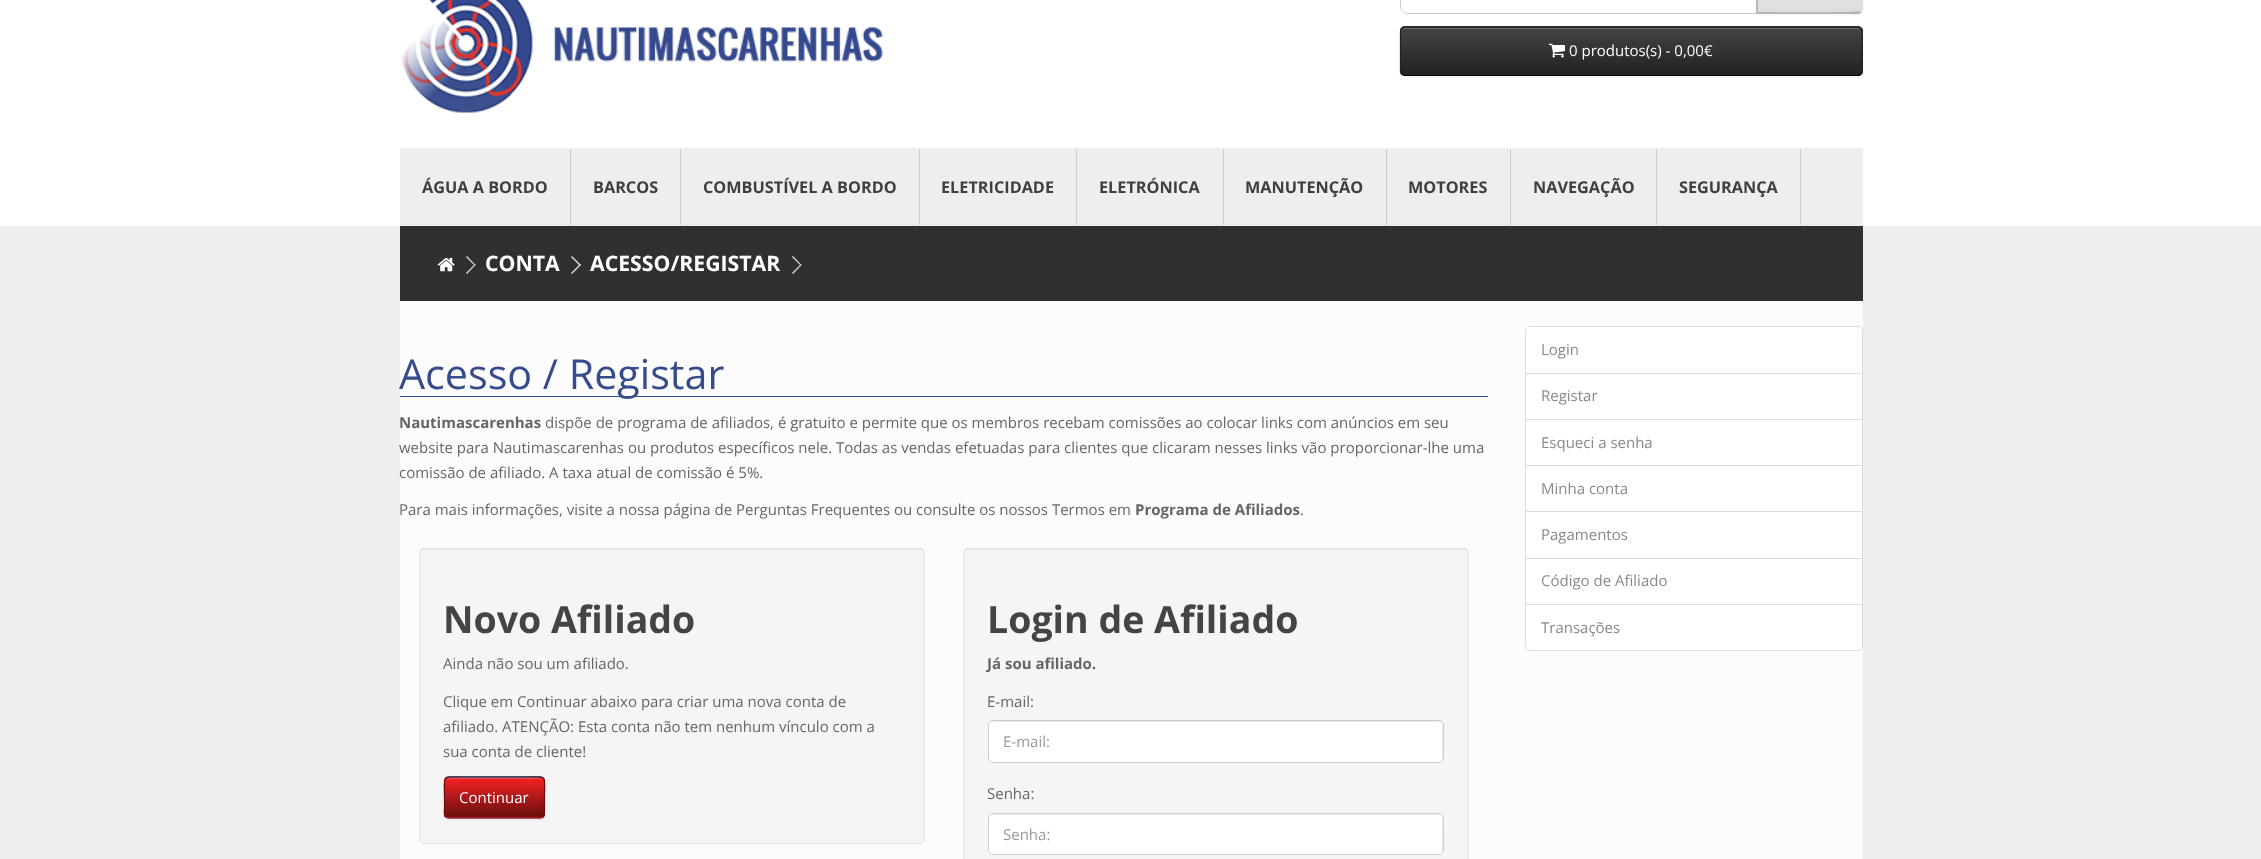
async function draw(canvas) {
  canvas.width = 2261
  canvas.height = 859
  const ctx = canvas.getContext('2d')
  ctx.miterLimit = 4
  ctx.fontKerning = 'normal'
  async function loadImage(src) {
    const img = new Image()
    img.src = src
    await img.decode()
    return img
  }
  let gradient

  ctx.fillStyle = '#eee'
  ctx.fillRect(0, 0, 2261, 859)
  ctx.fillStyle = '#fff'
  ctx.fillRect(0, 0, 2261, 226)
  ctx.drawImage(await loadImage('image0.png'), 401, 0, 482, 113)
  ctx.beginPath()
  ctx.moveTo(1408, -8.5)
  ctx.lineTo(1757.5, -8.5)
  ctx.lineTo(1757.5, 13.5)
  ctx.lineTo(1408, 13.5)
  ctx.bezierCurveTo(1404, 13.5, 1400.5, 10, 1400.5, 6)
  ctx.lineTo(1400.5, -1)
  ctx.bezierCurveTo(1400.5, -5, 1404, -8.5, 1408, -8.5)
  ctx.closePath()
  ctx.strokeStyle = '#ccc'
  ctx.stroke()
  ctx.fillStyle = '#0000000d'
  ctx.filter = 'blur(1px)'
  ctx.beginPath()
  ctx.roundRect(1756, -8, 107, 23, 5)
  ctx.fill()
  ctx.filter = 'none'
  ctx.fillStyle = '#e7e7e7'
  ctx.beginPath()
  ctx.moveTo(1756, -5)
  ctx.lineTo(1858, -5)
  ctx.bezierCurveTo(1861, -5, 1863, -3, 1863, 0)
  ctx.lineTo(1863, 9)
  ctx.bezierCurveTo(1863, 12, 1861, 14, 1858, 14)
  ctx.lineTo(1756, 14)
  ctx.closePath()
  ctx.fill()
  ctx.save()
  ctx.beginPath()
  ctx.moveTo(1756, -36)
  ctx.lineTo(1858, -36)
  ctx.bezierCurveTo(1861, -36, 1863, -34, 1863, -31)
  ctx.lineTo(1863, 9)
  ctx.bezierCurveTo(1863, 12, 1861, 14, 1858, 14)
  ctx.lineTo(1756, 14)
  ctx.closePath()
  ctx.clip()
  gradient = ctx.createLinearGradient(1809, -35, 1809, 13)
  gradient.addColorStop(0, '#eee')
  gradient.addColorStop(1, '#ddd')
  ctx.fillStyle = gradient
  ctx.fillRect(1757, 0, 106, 13)
  ctx.restore()
  ctx.fillStyle = '#ddd'
  ctx.beginPath()
  ctx.moveTo(1861, -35)
  ctx.bezierCurveTo(1862, -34, 1862, -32, 1862, -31)
  ctx.lineTo(1862, 9)
  ctx.bezierCurveTo(1862, 10, 1862, 11, 1861, 12)
  ctx.lineTo(1860, 11)
  ctx.lineTo(1861, 10)
  ctx.lineTo(1861, -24)
  ctx.bezierCurveTo(1861, -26, 1862, -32, 1860, -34)
  ctx.closePath()
  ctx.fill()
  ctx.fillStyle = '#b3b3b3'
  ctx.beginPath()
  ctx.moveTo(1861, 12)
  ctx.lineTo(1859, 14)
  ctx.lineTo(1756, 14)
  ctx.lineTo(1758, 12)
  ctx.bezierCurveTo(1768, 12, 1858, 13, 1860, 11)
  ctx.closePath()
  ctx.fill()
  ctx.fillStyle = '#b7b7b7'
  ctx.beginPath()
  ctx.moveTo(1756, 14)
  ctx.lineTo(1758, 12)
  ctx.lineTo(1758, -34)
  ctx.lineTo(1756, -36)
  ctx.closePath()
  ctx.fill()
  ctx.fillStyle = '#0000000d'
  ctx.filter = 'blur(1px)'
  ctx.beginPath()
  ctx.roundRect(1400, 28, 463, 50, 5)
  ctx.fill()
  ctx.filter = 'none'
  ctx.fillStyle = '#363636'
  ctx.beginPath()
  ctx.roundRect(1400, 26, 463, 50, 5)
  ctx.fill()
  ctx.save()
  ctx.beginPath()
  ctx.roundRect(1400, 26, 463, 50, 5)
  ctx.clip()
  gradient = ctx.createLinearGradient(1631, 27, 1631, 75)
  gradient.addColorStop(0, '#444')
  gradient.addColorStop(1, '#222')
  ctx.fillStyle = gradient
  ctx.fillRect(1400, 28, 463, 47)
  ctx.restore()
  ctx.fillStyle = '#696969'
  ctx.beginPath()
  ctx.moveTo(1405, 29)
  ctx.lineTo(1858, 29)
  ctx.lineTo(1860, 30)
  ctx.bezierCurveTo(1860, 29, 1858, 28, 1857, 28)
  ctx.lineTo(1405, 28)
  ctx.bezierCurveTo(1403, 28, 1401, 30, 1401, 32)
  ctx.bezierCurveTo(1401, 30, 1403, 29, 1405, 29)
  ctx.closePath()
  ctx.fill()
  ctx.beginPath()
  ctx.moveTo(1860.5, 74.5)
  ctx.lineTo(1859, 75.5)
  ctx.lineTo(1706.5, 75.5)
  ctx.lineTo(1405, 75.5)
  ctx.lineTo(1402, 74.5)
  ctx.strokeStyle = '#000'
  ctx.lineWidth = 1.2
  ctx.stroke()
  ctx.beginPath()
  ctx.moveTo(1402, 74.5)
  ctx.bezierCurveTo(1401, 73.5, 1400.5, 72.5, 1400.5, 71)
  ctx.lineTo(1400.5, 31)
  ctx.bezierCurveTo(1400.5, 30, 1401, 29, 1402, 28)
  ctx.bezierCurveTo(1402.5, 27.5, 1404, 27, 1405, 27)
  ctx.lineTo(1857.5, 27)
  ctx.bezierCurveTo(1858.5, 27, 1860, 27.5, 1860.5, 28)
  ctx.bezierCurveTo(1861.5, 29, 1862, 30, 1862, 31)
  ctx.lineTo(1862, 71)
  ctx.bezierCurveTo(1862, 72.5, 1861.5, 73.5, 1860.5, 74.5)
  ctx.strokeStyle = '#222'
  ctx.stroke()
  ctx.drawImage(await loadImage('image1.png'), 1548, 43, 17, 15)
  ctx.font = '15px Open Sans'
  ctx.fillStyle = '#fff'
  ctx.fillText('0 produtos(s) - 0,00€', 1569, 56)
  ctx.fillStyle = '#eee'
  ctx.fillRect(400, 148, 1463, 78)
  ctx.fillStyle = '#cdcdcd'
  ctx.fillRect(570, 149, 1, 76)
  ctx.font = 'bold 16.25px Open Sans'
  ctx.fillStyle = '#403e3e'
  ctx.fillText('ÁGUA A BORDO', 422, 193)
  ctx.fillStyle = '#cdcdcd'
  ctx.fillRect(680, 149, 1, 76)
  ctx.fillStyle = '#403e3e'
  ctx.fillText('BARCOS', 593, 193)
  ctx.fillStyle = '#cdcdcd'
  ctx.fillRect(919, 149, 1, 76)
  ctx.fillStyle = '#403e3e'
  ctx.fillText('COMBUSTÍVEL A BORDO', 703, 193)
  ctx.fillStyle = '#cdcdcd'
  ctx.fillRect(1076, 149, 1, 76)
  ctx.fillStyle = '#403e3e'
  ctx.fillText('ELETRICIDADE', 941, 193)
  ctx.fillStyle = '#cdcdcd'
  ctx.fillRect(1223, 149, 1, 76)
  ctx.fillStyle = '#403e3e'
  ctx.fillText('ELETRÓNICA', 1099, 193)
  ctx.fillStyle = '#cdcdcd'
  ctx.fillRect(1386, 149, 1, 76)
  ctx.fillStyle = '#403e3e'
  ctx.fillText('MANUTENÇÃO', 1245, 193)
  ctx.fillStyle = '#cdcdcd'
  ctx.fillRect(1510, 149, 1, 76)
  ctx.fillStyle = '#403e3e'
  ctx.fillText('MOTORES', 1408, 193)
  ctx.fillStyle = '#cdcdcd'
  ctx.fillRect(1656, 149, 1, 76)
  ctx.fillStyle = '#403e3e'
  ctx.fillText('NAVEGAÇÃO', 1533, 193)
  ctx.fillStyle = '#cdcdcd'
  ctx.fillRect(1800, 149, 1, 76)
  ctx.fillStyle = '#403e3e'
  ctx.fillText('SEGURANÇA', 1679, 193)
  ctx.fillStyle = '#fcfcfc'
  ctx.fillRect(400, 301, 1463, 558)
  ctx.fillStyle = '#313030'
  ctx.fillRect(400, 226, 1463, 75)
  ctx.drawImage(await loadImage('image2.png'), 437, 257, 18, 15)
  ctx.fillStyle = '#ddd'
  ctx.beginPath()
  ctx.moveTo(466, 257)
  ctx.lineTo(467, 256)
  ctx.lineTo(475.5, 265)
  ctx.lineTo(475, 266)
  ctx.closePath()
  ctx.fill()
  ctx.beginPath()
  ctx.moveTo(466, 273)
  ctx.lineTo(475, 264)
  ctx.lineTo(475.5, 265)
  ctx.lineTo(467, 274)
  ctx.closePath()
  ctx.fill()
  ctx.font = 'bold 21.25px Open Sans'
  ctx.fillStyle = '#fff'
  ctx.fillText('CONTA', 485, 271)
  ctx.fillStyle = '#ddd'
  ctx.beginPath()
  ctx.moveTo(571, 257)
  ctx.lineTo(572, 256)
  ctx.lineTo(581, 265)
  ctx.lineTo(580, 266)
  ctx.closePath()
  ctx.fill()
  ctx.beginPath()
  ctx.moveTo(571, 273)
  ctx.lineTo(580, 264)
  ctx.lineTo(581, 265)
  ctx.lineTo(572, 274)
  ctx.closePath()
  ctx.fill()
  ctx.fillStyle = '#fff'
  ctx.fillText('ACESSO/REGISTAR', 590, 271)
  ctx.fillStyle = '#ddd'
  ctx.beginPath()
  ctx.moveTo(792, 257)
  ctx.lineTo(793, 256)
  ctx.lineTo(801.5, 265)
  ctx.lineTo(801, 266)
  ctx.closePath()
  ctx.fill()
  ctx.beginPath()
  ctx.moveTo(792, 273)
  ctx.lineTo(801, 264)
  ctx.lineTo(801.5, 265)
  ctx.lineTo(793, 274)
  ctx.closePath()
  ctx.fill()
  ctx.fillStyle = '#364b8c'
  ctx.fillRect(400, 396, 1088, 1)
  ctx.font = '41.25px Open Sans'
  ctx.fillText('Acesso / Registar', 399, 389)
  ctx.font = 'bold 15px Open Sans'
  ctx.fillStyle = '#666'
  ctx.fillText('Nautimascarenhas', 399, 428)
  ctx.font = '15px Open Sans'
  ctx.fillText('dispõe de programa de afiliados, é gratuito e permite que os membros recebam comissões ao colocar links com anúncios em seu', 545, 428)
  ctx.fillText('website para Nautimascarenhas ou produtos específicos nele. Todas as vendas efetuadas para clientes que clicaram nesses links vão proporcionar-lhe uma', 399, 453)
  ctx.fillText('comissão de afiliado. A taxa atual de comissão é 5%.', 399, 478)
  ctx.fillText('Para mais informações, visite a nossa página de Perguntas Frequentes ou consulte os nossos Termos em', 399, 515)
  ctx.font = 'bold 15px Open Sans'
  ctx.fillText('Programa de Afiliados', 1135, 515)
  ctx.font = '15px Open Sans'
  ctx.fillText('.', 1300, 515)
  ctx.fillStyle = '#f5f5f5'
  ctx.beginPath()
  ctx.roundRect(419, 548, 506, 296, 5)
  ctx.fill()
  ctx.fillStyle = '#e9e9e9'
  ctx.beginPath()
  ctx.moveTo(424, 550)
  ctx.lineTo(920, 550)
  ctx.bezierCurveTo(922, 550, 924, 552, 924, 554)
  ctx.bezierCurveTo(924, 551, 923, 549, 920, 549)
  ctx.lineTo(424, 549)
  ctx.bezierCurveTo(421, 549, 420, 551, 420, 554)
  ctx.bezierCurveTo(420, 552, 422, 550, 424, 550)
  ctx.closePath()
  ctx.fill()
  ctx.beginPath()
  ctx.roundRect(419.5, 548.5, 505, 295, 4.5)
  ctx.strokeStyle = '#e3e3e3'
  ctx.lineWidth = 1
  ctx.stroke()
  ctx.font = 'bold 37.5px Open Sans'
  ctx.fillStyle = '#444'
  ctx.fillText('Novo Afiliado', 443, 633)
  ctx.font = '15px Open Sans'
  ctx.fillStyle = '#666'
  ctx.fillText('Ainda não sou um afiliado.', 443, 669)
  ctx.fillText('Clique em Continuar abaixo para criar uma nova conta de', 443, 707)
  ctx.fillText('afiliado. ATENÇÃO: Esta conta não tem nenhum vínculo com a', 443, 732)
  ctx.fillText('sua conta de cliente!', 443, 757)
  ctx.fillStyle = '#0000000d'
  ctx.filter = 'blur(1px)'
  ctx.beginPath()
  ctx.roundRect(444, 778, 101, 42, 5)
  ctx.fill()
  ctx.filter = 'none'
  ctx.fillStyle = '#428bca'
  ctx.beginPath()
  ctx.roundRect(444, 776, 101, 43, 5)
  ctx.fill()
  ctx.save()
  ctx.beginPath()
  ctx.roundRect(444, 776, 101, 43, 5)
  ctx.clip()
  gradient = ctx.createLinearGradient(494, 778, 494, 818)
  gradient.addColorStop(0, '#f32122')
  gradient.addColorStop(1, '#660e0f')
  ctx.fillStyle = gradient
  ctx.fillRect(444, 778, 101, 40)
  ctx.restore()
  ctx.fillStyle = '#ffffff33'
  ctx.beginPath()
  ctx.moveTo(449, 779)
  ctx.lineTo(540, 779)
  ctx.bezierCurveTo(542, 779, 544, 780, 544, 782)
  ctx.bezierCurveTo(544, 780, 542, 778, 540, 778)
  ctx.lineTo(449, 778)
  ctx.bezierCurveTo(447, 778, 445, 780, 445, 782)
  ctx.bezierCurveTo(445, 780, 447, 779, 449, 779)
  ctx.closePath()
  ctx.fill()
  ctx.beginPath()
  ctx.moveTo(543, 817)
  ctx.bezierCurveTo(542.5, 817.5, 541, 818, 540, 818)
  ctx.lineTo(449, 818)
  ctx.bezierCurveTo(447.5, 818, 446.5, 817.5, 445.5, 817)
  ctx.strokeStyle = '#f32122'
  ctx.lineWidth = 1.2
  ctx.stroke()
  ctx.beginPath()
  ctx.moveTo(445.5, 817)
  ctx.bezierCurveTo(443.5, 814.5, 444.5, 810.5, 444.5, 808.5)
  ctx.lineTo(444.5, 797.5)
  ctx.bezierCurveTo(444.5, 774, 440.5, 777, 464, 777)
  ctx.lineTo(525, 777)
  ctx.bezierCurveTo(548.5, 777, 544.5, 774, 544.5, 797.5)
  ctx.lineTo(544.5, 808.5)
  ctx.bezierCurveTo(544.5, 810.5, 545, 814.5, 543, 817)
  ctx.strokeStyle = '#660e0f'
  ctx.stroke()
  ctx.fillStyle = '#fff'
  ctx.fillText('Continuar', 459, 803)
  ctx.fillStyle = '#f5f5f5'
  ctx.beginPath()
  ctx.roundRect(963, 548, 506, 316, 5)
  ctx.fill()
  ctx.fillStyle = '#e9e9e9'
  ctx.beginPath()
  ctx.moveTo(968, 550)
  ctx.lineTo(1464, 550)
  ctx.bezierCurveTo(1466, 550, 1468, 552, 1468, 554)
  ctx.bezierCurveTo(1468, 551, 1467, 549, 1464, 549)
  ctx.lineTo(968, 549)
  ctx.bezierCurveTo(965, 549, 964, 551, 964, 554)
  ctx.bezierCurveTo(964, 552, 965, 550, 968, 550)
  ctx.closePath()
  ctx.fill()
  ctx.beginPath()
  ctx.roundRect(963.5, 548.5, 505, 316, 4.5)
  ctx.strokeStyle = '#e3e3e3'
  ctx.lineWidth = 1
  ctx.stroke()
  ctx.font = 'bold 37.5px Open Sans'
  ctx.fillStyle = '#444'
  ctx.fillText('Login de Afiliado', 987, 633)
  ctx.font = 'bold 15px Open Sans'
  ctx.fillStyle = '#666'
  ctx.fillText('Já sou afiliado.', 987, 669)
  ctx.font = '15px Open Sans'
  ctx.fillText('E-mail:', 987, 707)
  ctx.fillStyle = '#fff'
  ctx.beginPath()
  ctx.roundRect(988, 720, 456, 43, 5)
  ctx.fill()
  ctx.fillStyle = '#ececec'
  ctx.beginPath()
  ctx.moveTo(992, 722)
  ctx.lineTo(1439, 722)
  ctx.bezierCurveTo(1441, 722, 1442, 724, 1442, 726)
  ctx.lineTo(1442, 760)
  ctx.bezierCurveTo(1443, 759, 1443, 758, 1443, 757)
  ctx.lineTo(1443, 725)
  ctx.bezierCurveTo(1443, 723, 1441, 721, 1439, 721)
  ctx.lineTo(993, 721)
  ctx.bezierCurveTo(991, 721, 989, 723, 989, 725)
  ctx.lineTo(989, 726)
  ctx.bezierCurveTo(989, 724, 990, 722, 992, 722)
  ctx.closePath()
  ctx.fill()
  ctx.beginPath()
  ctx.roundRect(988.5, 720.5, 455, 42, 4.5)
  ctx.strokeStyle = '#ccc'
  ctx.stroke()
  ctx.fillStyle = '#999'
  ctx.fillText('E-mail:', 1003, 747)
  ctx.fillStyle = '#666'
  ctx.fillText('Senha:', 987, 799)
  ctx.fillStyle = '#fff'
  ctx.beginPath()
  ctx.roundRect(988, 813, 456, 42, 5)
  ctx.fill()
  ctx.fillStyle = '#ececec'
  ctx.beginPath()
  ctx.moveTo(992, 815)
  ctx.lineTo(1439, 815)
  ctx.bezierCurveTo(1444, 815, 1442, 828, 1442, 830)
  ctx.lineTo(1442, 853)
  ctx.bezierCurveTo(1442, 852, 1443, 851, 1443, 850)
  ctx.lineTo(1443, 818)
  ctx.bezierCurveTo(1443, 816, 1441, 814, 1439, 814)
  ctx.lineTo(993, 814)
  ctx.bezierCurveTo(991, 814, 989, 816, 989, 818)
  ctx.lineTo(989, 819)
  ctx.bezierCurveTo(989, 817, 990, 815, 992, 815)
  ctx.closePath()
  ctx.fill()
  ctx.beginPath()
  ctx.roundRect(988.5, 813.5, 455, 41, 4.5)
  ctx.stroke()
  ctx.fillStyle = '#999'
  ctx.fillText('Senha:', 1003, 840)
  ctx.fillStyle = '#fff'
  ctx.beginPath()
  ctx.roundRect(1525.5, 326.5, 337, 47, [4.5, 4.5, 0, 0])
  ctx.fill()
  ctx.strokeStyle = '#ddd'
  ctx.stroke()
  ctx.fillStyle = '#888'
  ctx.fillText('Login', 1541, 355)
  ctx.fillStyle = '#fff'
  ctx.beginPath()
  ctx.rect(1525.5, 373.5, 337, 46)
  ctx.fill()
  ctx.stroke()
  ctx.fillStyle = '#888'
  ctx.fillText('Registar', 1541, 401)
  ctx.fillStyle = '#fff'
  ctx.beginPath()
  ctx.rect(1525.5, 419.5, 337, 46)
  ctx.fill()
  ctx.stroke()
  ctx.fillStyle = '#888'
  ctx.fillText('Esqueci a senha', 1541, 448)
  ctx.fillStyle = '#fff'
  ctx.fillRect(1526, 466, 336, 45)
  ctx.strokeRect(1525.5, 465.5, 337, 47)
  ctx.fillStyle = '#888'
  ctx.fillText('Minha conta', 1541, 494)
  ctx.fillStyle = '#fff'
  ctx.beginPath()
  ctx.rect(1525.5, 511.5, 337, 47)
  ctx.fill()
  ctx.stroke()
  ctx.fillStyle = '#888'
  ctx.fillText('Pagamentos', 1541, 540)
  ctx.fillStyle = '#fff'
  ctx.beginPath()
  ctx.rect(1525.5, 558.5, 337, 46)
  ctx.fill()
  ctx.stroke()
  ctx.fillStyle = '#888'
  ctx.fillText('Código de Afiliado', 1541, 586)
  ctx.fillStyle = '#fff'
  ctx.beginPath()
  ctx.roundRect(1525.5, 604.5, 337, 46, [0, 0, 4.5, 4.5])
  ctx.fill()
  ctx.stroke()
  ctx.fillStyle = '#888'
  ctx.fillText('Transações', 1541, 633)
}

draw(document.querySelector('canvas'))
